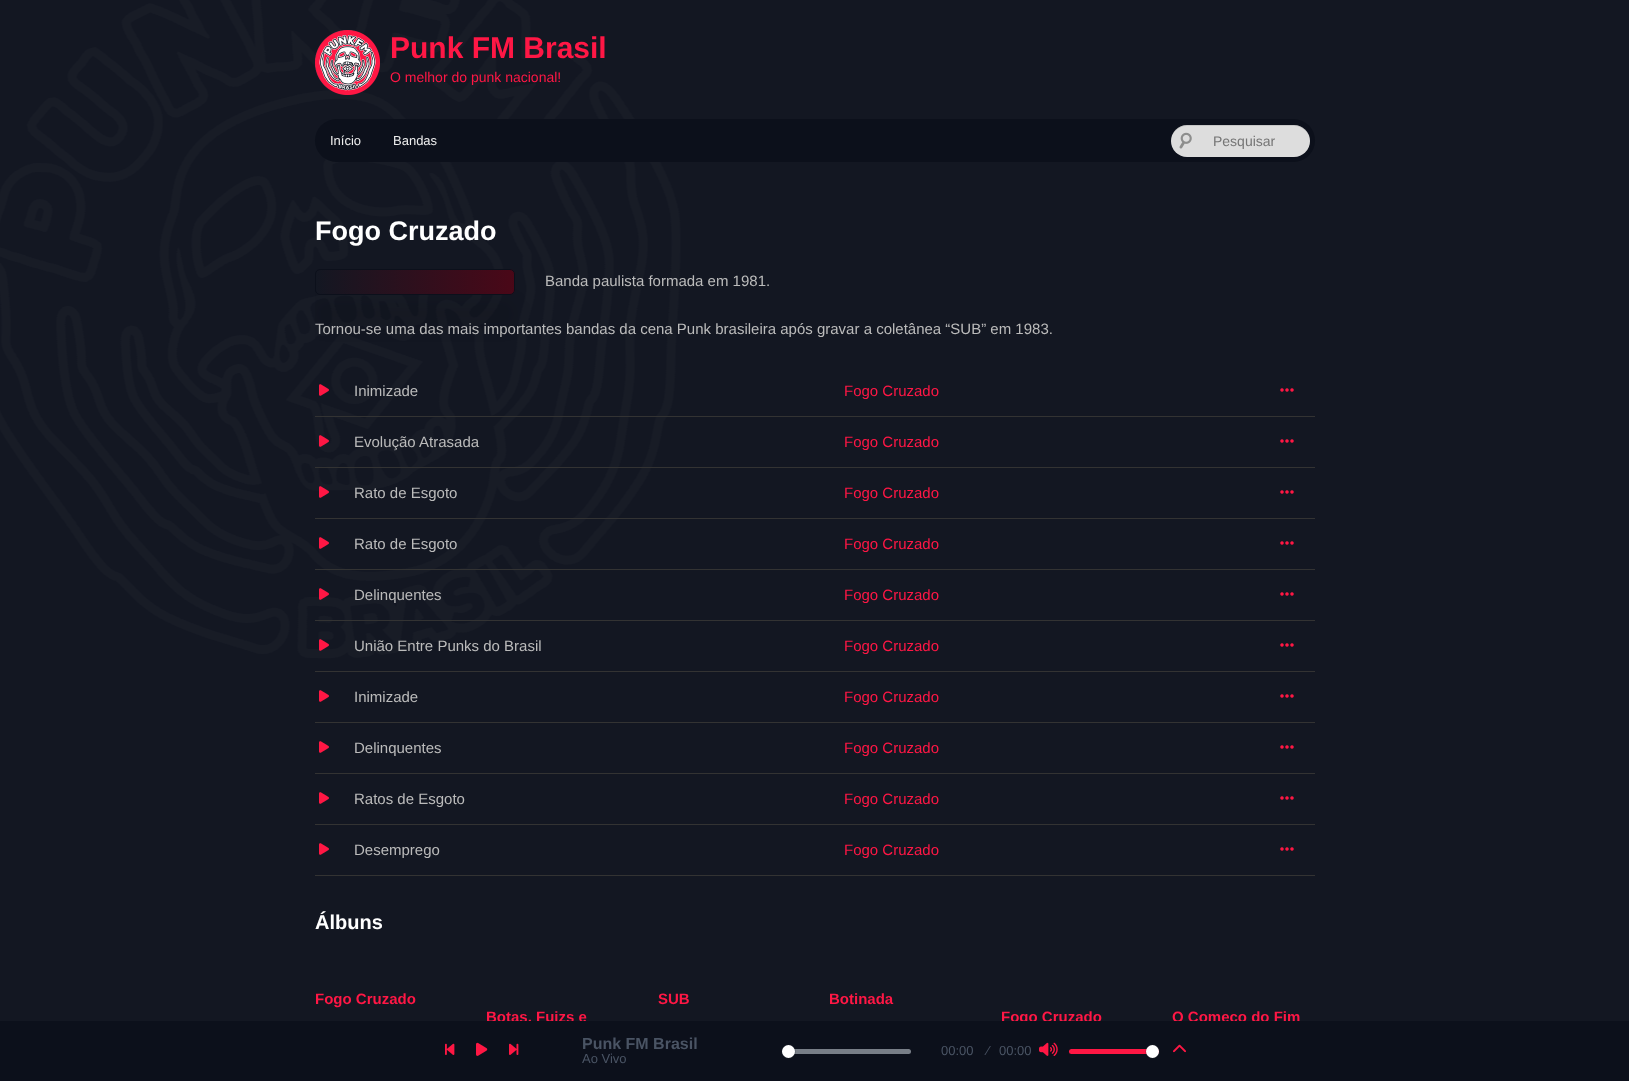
async function draw(canvas) {
  canvas.width = 1629
  canvas.height = 1081
  const ctx = canvas.getContext('2d')
  ctx.miterLimit = 4
  ctx.fontKerning = 'normal'
  async function loadImage(src) {
    const img = new Image()
    img.src = src
    await img.decode()
    return img
  }
  let gradient

  ctx.fillStyle = '#131722'
  ctx.fillRect(0, 0, 1629, 1081)
  ctx.drawImage(await loadImage('image0.png'), 0, 0, 1159, 954)
  ctx.drawImage(await loadImage('image1.png'), 315, 30, 65, 65)
  ctx.font = 'bold 30px Liberation Sans'
  ctx.fillStyle = '#ff1745'
  ctx.fillText('Punk FM Brasil', 390, 58)
  ctx.font = '14px Liberation Sans'
  ctx.fillText('O melhor do punk nacional!', 390, 82)
  ctx.fillStyle = '#0c101b'
  ctx.beginPath()
  ctx.roundRect(315, 119, 1000, 43, 21.5)
  ctx.fill()
  ctx.font = '13px Liberation Sans'
  ctx.fillStyle = '#eee'
  ctx.fillText('Início', 330, 145)
  ctx.fillText('Bandas', 393, 145)
  ctx.fillStyle = '#ddd'
  ctx.beginPath()
  ctx.roundRect(1171, 125, 139, 32, 16)
  ctx.fill()
  ctx.drawImage(await loadImage('image2.png'), 1179, 132, 13, 17)
  ctx.fillStyle = '#0000001a'
  ctx.beginPath()
  ctx.moveTo(1187, 126)
  ctx.lineTo(1294, 126)
  ctx.bezierCurveTo(1303, 126, 1310, 133, 1310, 141)
  ctx.bezierCurveTo(1310, 132, 1303, 125, 1294, 125)
  ctx.lineTo(1187, 125)
  ctx.bezierCurveTo(1178, 125, 1171, 132, 1171, 141)
  ctx.bezierCurveTo(1171, 133, 1178, 126, 1187, 126)
  ctx.closePath()
  ctx.fill()
  ctx.font = '14px Liberation Sans'
  ctx.fillStyle = '#757575'
  ctx.fillText('Pesquisar', 1213, 146)
  ctx.font = 'bold 27px Liberation Sans'
  ctx.fillStyle = '#fff'
  ctx.fillText('Fogo Cruzado', 315, 240)
  ctx.save()
  ctx.beginPath()
  ctx.rect(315, 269, 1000, 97)
  ctx.clip()
  ctx.fillStyle = '#00000017'
  ctx.filter = 'blur(8px)'
  ctx.beginPath()
  ctx.roundRect(315, 301, 200, 26, 5)
  ctx.fill()
  ctx.filter = 'none'
  ctx.restore()
  ctx.save()
  ctx.beginPath()
  ctx.roundRect(315, 269, 200, 26, 5)
  ctx.clip()
  gradient = ctx.createLinearGradient(316, 318, 1108, 318)
  gradient.addColorStop(0, '#131722')
  gradient.addColorStop(0.34, '#5e0214')
  gradient.addColorStop(0.4, '#9e0523')
  gradient.addColorStop(0.71, '#49010f')
  gradient.addColorStop(1, '#131722')
  ctx.fillStyle = gradient
  ctx.beginPath()
  ctx.roundRect(316, 269, 199, 26, [0, 5, 5, 0])
  ctx.fill()
  ctx.restore()
  ctx.beginPath()
  ctx.roundRect(315.5, 269.5, 199, 25, 4.5)
  ctx.strokeStyle = '#0c101b'
  ctx.stroke()
  ctx.font = '15px Liberation Sans'
  ctx.fillStyle = '#bbb'
  ctx.fillText('Banda paulista formada em 1981.', 545, 286)
  ctx.fillText('Tornou-se uma das mais importantes bandas da cena Punk brasileira após gravar a coletânea “SUB” em 1983.', 315, 334)
  ctx.fillStyle = '#333'
  ctx.fillRect(315, 416, 1000, 1)
  ctx.drawImage(await loadImage('image3.png'), 319, 384, 10, 12)
  ctx.fillStyle = '#bbb'
  ctx.fillText('Inimizade', 354, 396)
  ctx.fillStyle = '#ff1745'
  ctx.fillText('Fogo Cruzado', 844, 396)
  ctx.drawImage(await loadImage('image4.png'), 1280, 388, 14, 4)
  ctx.fillStyle = '#333'
  ctx.fillRect(315, 467, 1000, 1)
  ctx.drawImage(await loadImage('image5.png'), 319, 435, 10, 12)
  ctx.fillStyle = '#bbb'
  ctx.fillText('Evolução Atrasada', 354, 447)
  ctx.fillStyle = '#ff1745'
  ctx.fillText('Fogo Cruzado', 844, 447)
  ctx.drawImage(await loadImage('image4.png'), 1280, 439, 14, 4)
  ctx.fillStyle = '#333'
  ctx.fillRect(315, 518, 1000, 1)
  ctx.drawImage(await loadImage('image6.png'), 319, 486, 10, 12)
  ctx.fillStyle = '#bbb'
  ctx.fillText('Rato de Esgoto', 354, 498)
  ctx.fillStyle = '#ff1745'
  ctx.fillText('Fogo Cruzado', 844, 498)
  ctx.drawImage(await loadImage('image4.png'), 1280, 490, 14, 4)
  ctx.fillStyle = '#333'
  ctx.fillRect(315, 569, 1000, 1)
  ctx.drawImage(await loadImage('image3.png'), 319, 537, 10, 12)
  ctx.fillStyle = '#bbb'
  ctx.fillText('Rato de Esgoto', 354, 549)
  ctx.fillStyle = '#ff1745'
  ctx.fillText('Fogo Cruzado', 844, 549)
  ctx.drawImage(await loadImage('image4.png'), 1280, 541, 14, 4)
  ctx.fillStyle = '#333'
  ctx.fillRect(315, 620, 1000, 1)
  ctx.drawImage(await loadImage('image7.png'), 319, 588, 10, 12)
  ctx.fillStyle = '#bbb'
  ctx.fillText('Delinquentes', 354, 600)
  ctx.fillStyle = '#ff1745'
  ctx.fillText('Fogo Cruzado', 844, 600)
  ctx.drawImage(await loadImage('image4.png'), 1280, 592, 14, 4)
  ctx.fillStyle = '#333'
  ctx.fillRect(315, 671, 1000, 1)
  ctx.drawImage(await loadImage('image8.png'), 319, 639, 10, 12)
  ctx.fillStyle = '#bbb'
  ctx.fillText('União Entre Punks do Brasil', 354, 651)
  ctx.fillStyle = '#ff1745'
  ctx.fillText('Fogo Cruzado', 844, 651)
  ctx.drawImage(await loadImage('image4.png'), 1280, 643, 14, 4)
  ctx.fillStyle = '#333'
  ctx.fillRect(315, 722, 1000, 1)
  ctx.drawImage(await loadImage('image3.png'), 319, 690, 10, 12)
  ctx.fillStyle = '#bbb'
  ctx.fillText('Inimizade', 354, 702)
  ctx.fillStyle = '#ff1745'
  ctx.fillText('Fogo Cruzado', 844, 702)
  ctx.drawImage(await loadImage('image4.png'), 1280, 694, 14, 4)
  ctx.fillStyle = '#333'
  ctx.fillRect(315, 773, 1000, 1)
  ctx.drawImage(await loadImage('image3.png'), 319, 741, 10, 12)
  ctx.fillStyle = '#bbb'
  ctx.fillText('Delinquentes', 354, 753)
  ctx.fillStyle = '#ff1745'
  ctx.fillText('Fogo Cruzado', 844, 753)
  ctx.drawImage(await loadImage('image4.png'), 1280, 745, 14, 4)
  ctx.fillStyle = '#333'
  ctx.fillRect(315, 824, 1000, 1)
  ctx.drawImage(await loadImage('image3.png'), 319, 792, 10, 12)
  ctx.fillStyle = '#bbb'
  ctx.fillText('Ratos de Esgoto', 354, 804)
  ctx.fillStyle = '#ff1745'
  ctx.fillText('Fogo Cruzado', 844, 804)
  ctx.drawImage(await loadImage('image4.png'), 1280, 796, 14, 4)
  ctx.fillStyle = '#333'
  ctx.fillRect(315, 875, 1000, 1)
  ctx.drawImage(await loadImage('image3.png'), 319, 843, 10, 12)
  ctx.fillStyle = '#bbb'
  ctx.fillText('Desemprego', 354, 855)
  ctx.fillStyle = '#ff1745'
  ctx.fillText('Fogo Cruzado', 844, 855)
  ctx.drawImage(await loadImage('image4.png'), 1280, 847, 14, 4)
  ctx.font = 'bold 20px Liberation Sans'
  ctx.fillStyle = '#fff'
  ctx.fillText('Álbuns', 315, 929)
  ctx.font = 'bold 15px Liberation Sans'
  ctx.fillStyle = '#ff1745'
  ctx.fillText('Fogo Cruzado', 315, 1004)
  ctx.fillText('SUB', 658, 1004)
  ctx.fillText('Botinada', 829, 1004)
  ctx.fillText('Botas, Fuizs e', 486, 1022)
  ctx.fillText('Fogo Cruzado', 1001, 1022)
  ctx.fillText('O Começo do Fim', 1172, 1022)
  ctx.fillStyle = '#0c101b'
  ctx.fillRect(0, 1021, 1629, 60)
  ctx.drawImage(await loadImage('image9.png'), 445, 1043, 10, 12)
  ctx.drawImage(await loadImage('image10.png'), 476, 1042, 12, 14)
  ctx.drawImage(await loadImage('image11.png'), 509, 1043, 10, 12)
  ctx.font = 'bold 16px Liberation Sans'
  ctx.fillStyle = '#4a5464'
  ctx.fillText('Punk FM Brasil', 582, 1049)
  ctx.font = '13px Liberation Sans'
  ctx.fillText('Ao Vivo', 582, 1063)
  ctx.fillStyle = '#c1c8d199'
  ctx.beginPath()
  ctx.roundRect(782, 1049, 129, 5, 2.5)
  ctx.fill()
  ctx.beginPath()
  ctx.arc(788.5, 1051.5, 7, 0, 2 * Math.PI)
  ctx.strokeStyle = '#23282f33'
  ctx.stroke()
  ctx.fillStyle = '#23282f26'
  ctx.filter = 'blur(0.5px)'
  ctx.beginPath()
  ctx.roundRect(782, 1046, 13, 13, 6.5)
  ctx.fill()
  ctx.filter = 'none'
  ctx.fillStyle = '#fff'
  ctx.beginPath()
  ctx.arc(788.5, 1051.5, 6.5, 0, 2 * Math.PI)
  ctx.fill()
  ctx.fillStyle = '#4a5464'
  ctx.fillText('00:00', 941, 1055)
  ctx.fillText('⁄', 987, 1055)
  ctx.fillText('00:00', 999, 1055)
  ctx.drawImage(await loadImage('image12.png'), 1039, 1042, 19, 14)
  ctx.fillStyle = '#ff1744'
  ctx.beginPath()
  ctx.roundRect(1069, 1049, 90, 5, 2.5)
  ctx.fill()
  ctx.beginPath()
  ctx.arc(1152.5, 1051.5, 7, 0, 2 * Math.PI)
  ctx.stroke()
  ctx.fillStyle = '#23282f26'
  ctx.filter = 'blur(0.5px)'
  ctx.beginPath()
  ctx.roundRect(1146, 1046, 13, 13, 6.5)
  ctx.fill()
  ctx.filter = 'none'
  ctx.fillStyle = '#fff'
  ctx.beginPath()
  ctx.arc(1152.5, 1051.5, 6.5, 0, 2 * Math.PI)
  ctx.fill()
  ctx.drawImage(await loadImage('image13.png'), 1173, 1044, 13, 9)
}

draw(document.querySelector('canvas'))
